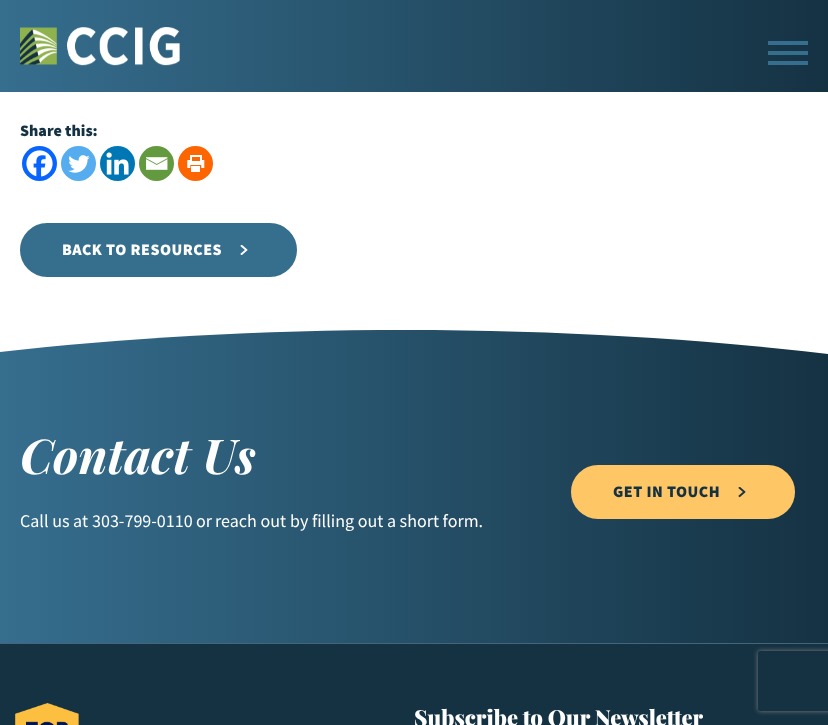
async function draw(canvas) {
  canvas.width = 828
  canvas.height = 725
  const ctx = canvas.getContext('2d')
  ctx.miterLimit = 4
  ctx.fontKerning = 'normal'
  async function loadImage(src) {
    const img = new Image()
    img.src = src
    await img.decode()
    return img
  }
  let gradient

  ctx.fillStyle = '#fff'
  ctx.fillRect(0, 0, 828, 725)
  gradient = ctx.createLinearGradient(0, 46, 828, 46)
  gradient.addColorStop(0, '#366e8e')
  gradient.addColorStop(1, '#153243')
  ctx.fillStyle = gradient
  ctx.fillRect(0, 0, 828, 92)
  ctx.drawImage(await loadImage('image0.png'), 20, 27, 160, 39)
  ctx.fillStyle = '#366e8e'
  ctx.fillRect(768, 41, 40, 4)
  ctx.fillRect(768, 51, 40, 4)
  ctx.fillRect(768, 61, 40, 4)
  ctx.font = '900 16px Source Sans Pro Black'
  ctx.fillStyle = '#153243'
  ctx.fillText('Share this:', 20, 136)
  ctx.fillStyle = '#0765fe'
  ctx.beginPath()
  ctx.arc(39.5, 163.5, 17.5, 0, 2 * Math.PI)
  ctx.fill()
  ctx.drawImage(await loadImage('image1.png'), 26, 150, 27, 27)
  ctx.fillStyle = '#55acee'
  ctx.beginPath()
  ctx.arc(78.5, 163.5, 17.5, 0, 2 * Math.PI)
  ctx.fill()
  ctx.drawImage(await loadImage('image2.png'), 68, 155, 22, 18)
  ctx.fillStyle = '#0077b5'
  ctx.beginPath()
  ctx.arc(117.5, 163.5, 17.5, 0, 2 * Math.PI)
  ctx.fill()
  ctx.drawImage(await loadImage('image3.png'), 106, 152, 23, 23)
  ctx.fillStyle = '#649a3f'
  ctx.beginPath()
  ctx.arc(156.5, 163.5, 17.5, 0, 2 * Math.PI)
  ctx.fill()
  ctx.drawImage(await loadImage('image4.png'), 146, 157, 22, 13)
  ctx.fillStyle = '#fd6500'
  ctx.beginPath()
  ctx.arc(195.5, 163.5, 17.5, 0, 2 * Math.PI)
  ctx.fill()
  ctx.drawImage(await loadImage('image5.png'), 187, 155, 18, 17)
  ctx.fillStyle = '#366e8e'
  ctx.beginPath()
  ctx.roundRect(21, 224, 275, 52, 26)
  ctx.fill()
  ctx.strokeStyle = '#366e8e'
  ctx.lineWidth = 2
  ctx.stroke()
  ctx.letterSpacing = '0.5px'
  ctx.fillStyle = '#fefefe'
  ctx.fillText('BACK TO RESOURCES', 62, 255)
  ctx.drawImage(await loadImage('image6.png'), 240, 245, 8, 10)
  gradient = ctx.createLinearGradient(0, 473, 828, 473)
  gradient.addColorStop(0, '#366e8e')
  gradient.addColorStop(1, '#153243')
  ctx.fillStyle = gradient
  ctx.beginPath()
  ctx.moveTo(406, 330)
  ctx.bezierCurveTo(558, 330, 702, 339, 828, 354)
  ctx.lineTo(828, 644)
  ctx.lineTo(0, 644)
  ctx.lineTo(0, 352)
  ctx.bezierCurveTo(122, 338, 260, 330, 406, 330)
  ctx.closePath()
  ctx.fill()
  ctx.fillStyle = '#44657a'
  ctx.fillRect(0, 643, 828, 1)
  ctx.letterSpacing = '0px'
  ctx.font = 'italic bold 48px Playfair Display'
  ctx.fillStyle = '#fefefe'
  ctx.fillText('Contact Us', 20, 474)
  ctx.font = '18px Source Sans Pro'
  ctx.fillText('Call us at', 20, 527)
  ctx.fillText('303-799-0110', 92, 527)
  ctx.fillText('or', 196, 527)
  ctx.fillText('reach out', 215, 527)
  ctx.fillText('by filling out a short form.', 290, 527)
  ctx.fillStyle = '#ffc666'
  ctx.beginPath()
  ctx.roundRect(572, 466, 222, 52, 26)
  ctx.fill()
  ctx.strokeStyle = '#ffc666'
  ctx.stroke()
  ctx.letterSpacing = '0.5px'
  ctx.font = '900 16px Source Sans Pro Black'
  ctx.fillStyle = '#153243'
  ctx.fillText('GET IN TOUCH', 613, 497)
  ctx.drawImage(await loadImage('image7.png'), 738, 487, 8, 11)
  ctx.fillRect(0, 644, 828, 81)
  ctx.drawImage(await loadImage('image8.png'), 15, 703, 64, 22)
  ctx.letterSpacing = '0px'
  ctx.font = '900 22px Playfair Display'
  ctx.fillStyle = '#fefefe'
  ctx.fillText('Subscribe to Our Newsletter', 414, 726)
  ctx.save()
  ctx.beginPath()
  ctx.moveTo(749, 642)
  ctx.lineTo(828, 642)
  ctx.lineTo(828, 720)
  ctx.lineTo(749, 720)
  ctx.closePath()
  ctx.moveTo(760, 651)
  ctx.lineTo(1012, 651)
  ctx.bezierCurveTo(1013, 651, 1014, 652, 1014, 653)
  ctx.lineTo(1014, 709)
  ctx.bezierCurveTo(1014, 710, 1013, 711, 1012, 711)
  ctx.lineTo(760, 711)
  ctx.bezierCurveTo(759, 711, 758, 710, 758, 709)
  ctx.lineTo(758, 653)
  ctx.bezierCurveTo(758, 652, 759, 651, 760, 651)
  ctx.closePath()
  ctx.clip('evenodd')
  ctx.fillStyle = '#808080'
  ctx.filter = 'blur(2.5px)'
  ctx.beginPath()
  ctx.roundRect(758, 651, 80, 60, 2)
  ctx.fill()
  ctx.filter = 'none'
  ctx.restore()
}

draw(document.querySelector('canvas'))
